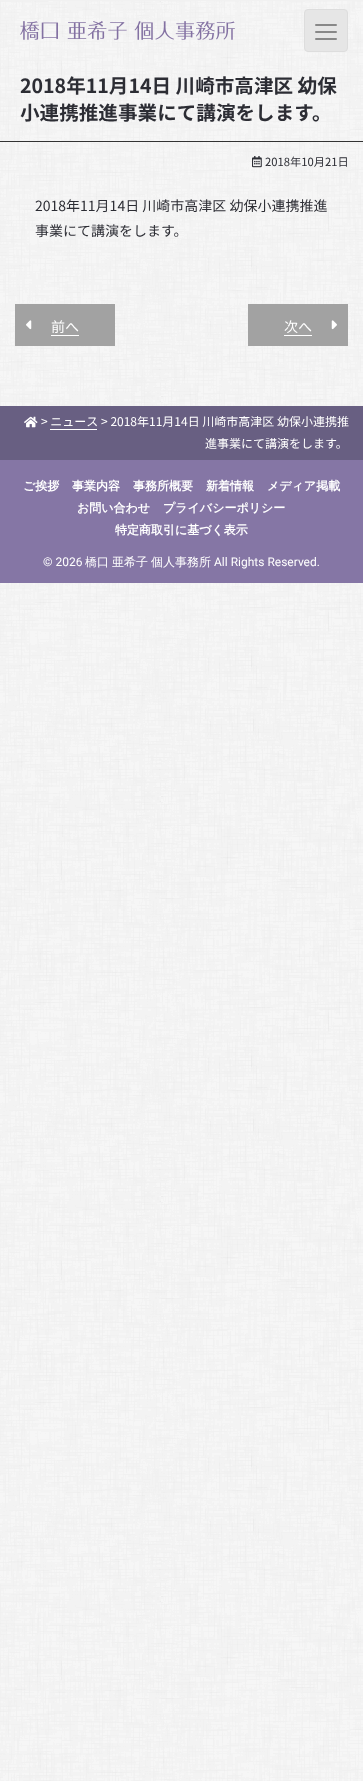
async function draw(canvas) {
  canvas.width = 363
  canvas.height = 1781
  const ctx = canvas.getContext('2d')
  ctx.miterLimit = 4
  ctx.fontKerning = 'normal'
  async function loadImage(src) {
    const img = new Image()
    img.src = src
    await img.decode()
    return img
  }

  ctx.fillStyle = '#fff'
  ctx.fillRect(0, 0, 363, 1781)
  ctx.drawImage(await loadImage('image0.png'), 0, 1, 363, 1780)
  ctx.fillStyle = '#f1f1f1'
  ctx.fillRect(0, 0, 363, 1)
  ctx.drawImage(await loadImage('image1.png'), 20, 21, 215, 19)
  ctx.fillStyle = '#e6e6e6'
  ctx.beginPath()
  ctx.roundRect(304.5, 9.5, 43, 42, 3.5)
  ctx.fill()
  ctx.strokeStyle = '#ddd'
  ctx.stroke()
  ctx.fillStyle = '#888'
  ctx.beginPath()
  ctx.roundRect(315, 24, 22, 2, 1)
  ctx.fill()
  ctx.beginPath()
  ctx.roundRect(315, 31, 22, 2, 1)
  ctx.fill()
  ctx.beginPath()
  ctx.roundRect(315, 38, 22, 2, 1)
  ctx.fill()
  ctx.fillStyle = '#333'
  ctx.fillRect(0, 141, 363, 1)
  ctx.font = 'bold 19.6px Noto Sans JP'
  ctx.fillStyle = '#2c2d34'
  ctx.fillText('2018年11月14日 川崎市高津区 幼保', 20, 93)
  ctx.fillText('小連携推進事業にて講演をします。', 20, 120)
  ctx.drawImage(await loadImage('image2.png'), 252, 156, 10, 12)
  ctx.font = '11.25px Noto Sans JP'
  ctx.fillText('2018年10月21日', 265, 166)
  ctx.font = '14px Noto Sans JP'
  ctx.fillText('2018年11月14日 川崎市高津区 幼保小連携推進', 35, 211)
  ctx.fillText('事業にて講演をします。', 35, 236)
  ctx.fillStyle = '#a2a2a2'
  ctx.fillRect(15, 304, 100, 42)
  ctx.drawImage(await loadImage('image3.png'), 26, 320, 6, 10)
  ctx.fillStyle = '#fff'
  ctx.fillText('前へ', 51, 332)
  ctx.fillRect(51, 335, 28, 1)
  ctx.fillStyle = '#a2a2a2'
  ctx.fillRect(248, 304, 100, 42)
  ctx.fillStyle = '#fff'
  ctx.fillText('次へ', 284, 332)
  ctx.fillRect(284, 335, 28, 1)
  ctx.drawImage(await loadImage('image4.png'), 331, 320, 6, 10)
  ctx.fillStyle = '#685f82'
  ctx.fillRect(0, 406, 363, 54)
  ctx.drawImage(await loadImage('image5.png'), 24, 416, 14, 12)
  ctx.font = '12px Noto Sans JP'
  ctx.fillStyle = '#fff'
  ctx.fillText('> ニュース > 2018年11月14日 川崎市高津区 幼保小連携推', 41, 426)
  ctx.fillRect(50, 429, 47, 1)
  ctx.fillText('進事業にて講演をします。', 205, 448)
  ctx.fillStyle = '#8576a5'
  ctx.fillRect(0, 460, 363, 123)
  ctx.font = 'bold 12px WenQuanYi Zen Hei'
  ctx.fillStyle = '#fff'
  ctx.fillText('ご挨拶', 23, 490)
  ctx.fillText('事業内容', 72, 490)
  ctx.fillText('事務所概要', 133, 490)
  ctx.fillText('新着情報', 206, 490)
  ctx.fillText('メディア掲載', 267, 490)
  ctx.fillText('お問い合わせ', 77, 512)
  ctx.fillText('プライバシーポリシー', 163, 512)
  ctx.fillText('特定商取引に基づく表示', 115, 534)
  ctx.font = '12px Roboto'
  ctx.fillText('© 2026', 43, 566)
  ctx.font = '500 12px WenQuanYi Zen Hei'
  ctx.fillText('橋口', 85, 566)
  ctx.fillText('亜希子', 112, 566)
  ctx.fillText('個人事務所', 151, 566)
  ctx.font = '12px Roboto'
  ctx.fillText('All Rights Reserved.', 214, 566)
}

draw(document.querySelector('canvas'))
